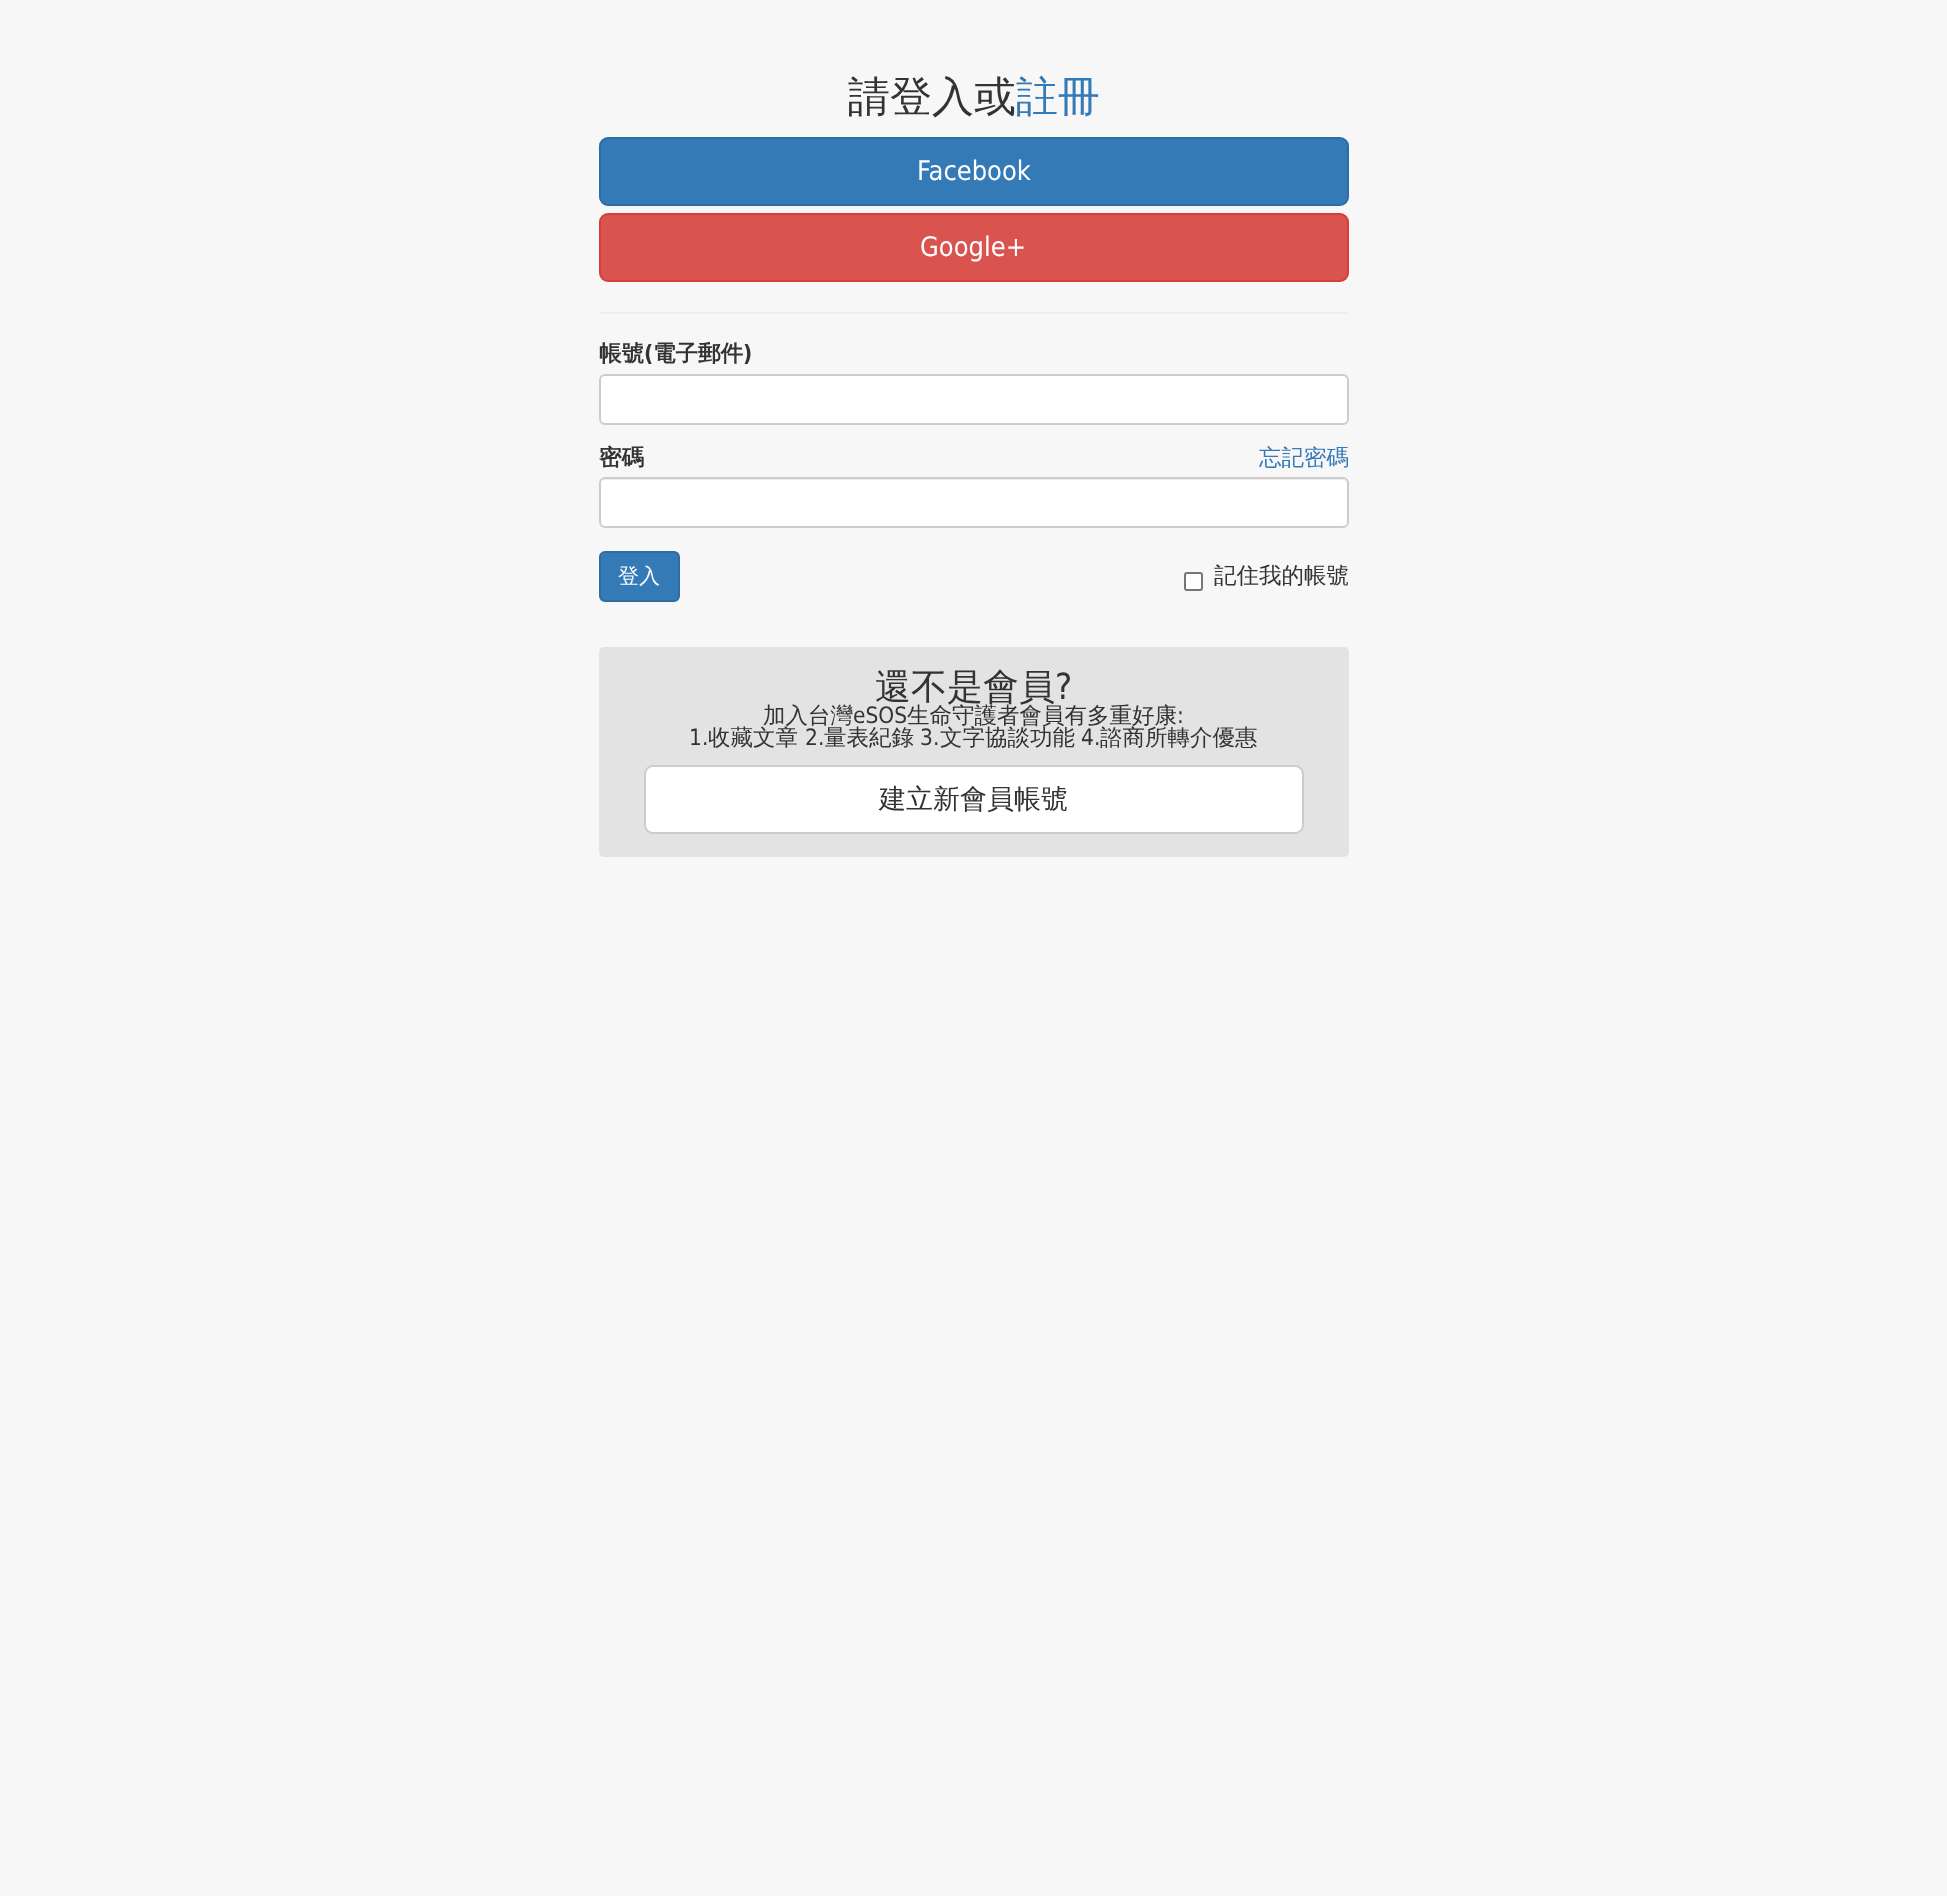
async function draw(canvas) {
  canvas.width = 1947
  canvas.height = 1896
  const ctx = canvas.getContext('2d')
  ctx.miterLimit = 4
  ctx.fontKerning = 'normal'

  ctx.fillStyle = '#f7f7f7'
  ctx.fillRect(0, 0, 1947, 1896)
  ctx.font = '500 42px WenQuanYi Zen Hei'
  ctx.fillStyle = '#333'
  ctx.fillText('請登入或', 848, 111)
  ctx.fillStyle = '#337ab7'
  ctx.fillText('註冊', 1016, 111)
  ctx.beginPath()
  ctx.roundRect(600, 138, 748, 67, 8)
  ctx.fill()
  ctx.strokeStyle = '#2e6da4'
  ctx.lineWidth = 2
  ctx.stroke()
  ctx.font = '27px DejaVu Sans'
  ctx.fillStyle = '#fff'
  ctx.fillText('Facebook', 917, 180)
  ctx.fillStyle = '#d9534f'
  ctx.beginPath()
  ctx.roundRect(600, 214, 748, 67, 8)
  ctx.fill()
  ctx.strokeStyle = '#d43f3a'
  ctx.stroke()
  ctx.fillStyle = '#fff'
  ctx.fillText('Google+', 920, 256)
  ctx.fillStyle = '#eee'
  ctx.fillRect(599, 312, 750, 2)
  ctx.font = 'bold 22.5px WenQuanYi Zen Hei'
  ctx.fillStyle = '#333'
  ctx.fillText('帳號', 599, 361)
  ctx.font = 'bold 22.5px DejaVu Sans'
  ctx.fillText('(', 644, 361)
  ctx.font = 'bold 22.5px WenQuanYi Zen Hei'
  ctx.fillText('電子郵件', 653, 361)
  ctx.font = 'bold 22.5px DejaVu Sans'
  ctx.fillText(')', 743, 361)
  ctx.fillStyle = '#fff'
  ctx.beginPath()
  ctx.roundRect(599, 374, 750, 51, 6)
  ctx.fill()
  ctx.fillStyle = '#ececec'
  ctx.beginPath()
  ctx.moveTo(604, 376)
  ctx.lineTo(1342, 376)
  ctx.bezierCurveTo(1345, 376, 1347, 379, 1347, 381)
  ctx.lineTo(1347, 380)
  ctx.bezierCurveTo(1347, 377, 1345, 375, 1342, 375)
  ctx.lineTo(605, 375)
  ctx.bezierCurveTo(602, 375, 600, 377, 600, 380)
  ctx.lineTo(600, 381)
  ctx.bezierCurveTo(600, 379, 602, 376, 604, 376)
  ctx.closePath()
  ctx.fill()
  ctx.beginPath()
  ctx.roundRect(600, 375, 748, 49, 5)
  ctx.strokeStyle = '#ccc'
  ctx.stroke()
  ctx.font = 'bold 22.5px WenQuanYi Zen Hei'
  ctx.fillStyle = '#333'
  ctx.fillText('密碼', 599, 465)
  ctx.font = '500 22.5px WenQuanYi Zen Hei'
  ctx.fillStyle = '#337ab7'
  ctx.fillText('忘記密碼', 1259, 465)
  ctx.fillStyle = '#fff'
  ctx.beginPath()
  ctx.roundRect(599, 477, 750, 51, 6)
  ctx.fill()
  ctx.fillStyle = '#ececec'
  ctx.beginPath()
  ctx.moveTo(604, 480)
  ctx.lineTo(1342, 480)
  ctx.bezierCurveTo(1345, 480, 1347, 482, 1347, 484)
  ctx.bezierCurveTo(1347, 481, 1345, 479, 1342, 479)
  ctx.lineTo(605, 479)
  ctx.bezierCurveTo(602, 479, 600, 481, 600, 484)
  ctx.bezierCurveTo(600, 482, 602, 480, 604, 480)
  ctx.closePath()
  ctx.fill()
  ctx.beginPath()
  ctx.roundRect(600, 478, 748, 49, 5)
  ctx.stroke()
  ctx.fillStyle = '#337ab7'
  ctx.beginPath()
  ctx.roundRect(600, 552, 79, 49, 5)
  ctx.fill()
  ctx.strokeStyle = '#2e6da4'
  ctx.stroke()
  ctx.font = '500 21px WenQuanYi Zen Hei'
  ctx.fillStyle = '#fff'
  ctx.fillText('登入', 618, 583)
  ctx.beginPath()
  ctx.roundRect(1185, 573, 17, 17, 2)
  ctx.fill()
  ctx.strokeStyle = '#767676'
  ctx.stroke()
  ctx.font = '500 22.5px WenQuanYi Zen Hei'
  ctx.fillStyle = '#333'
  ctx.fillText('記住我的帳號', 1214, 583)
  ctx.fillStyle = '#e3e3e3'
  ctx.beginPath()
  ctx.roundRect(599, 647, 750, 210, 5)
  ctx.fill()
  ctx.font = '500 36px WenQuanYi Zen Hei'
  ctx.fillStyle = '#333'
  ctx.fillText('還不是會員', 875, 699)
  ctx.font = '36px DejaVu Sans'
  ctx.fillText('?', 1055, 699)
  ctx.font = '500 22.5px WenQuanYi Zen Hei'
  ctx.fillText('加入台灣', 763, 723)
  ctx.font = '22.5px DejaVu Sans'
  ctx.fillText('eSOS', 853, 723)
  ctx.font = '500 22.5px WenQuanYi Zen Hei'
  ctx.fillText('生命守護者會員有多重好康', 907, 723)
  ctx.font = '22.5px DejaVu Sans'
  ctx.fillText(':', 1177, 723)
  ctx.fillText('1.', 689, 745)
  ctx.font = '500 22.5px WenQuanYi Zen Hei'
  ctx.fillText('收藏文章', 708, 745)
  ctx.font = '22.5px DejaVu Sans'
  ctx.fillText('2.', 805, 745)
  ctx.font = '500 22.5px WenQuanYi Zen Hei'
  ctx.fillText('量表紀錄', 824, 745)
  ctx.font = '22.5px DejaVu Sans'
  ctx.fillText('3.', 920, 745)
  ctx.font = '500 22.5px WenQuanYi Zen Hei'
  ctx.fillText('文字協談功能', 940, 745)
  ctx.font = '22.5px DejaVu Sans'
  ctx.fillText('4.', 1081, 745)
  ctx.font = '500 22.5px WenQuanYi Zen Hei'
  ctx.fillText('諮商所轉介優惠', 1100, 745)
  ctx.fillStyle = '#fff'
  ctx.beginPath()
  ctx.roundRect(645, 766, 658, 67, 8)
  ctx.fill()
  ctx.strokeStyle = '#ccc'
  ctx.stroke()
  ctx.font = '500 27px WenQuanYi Zen Hei'
  ctx.fillStyle = '#333'
  ctx.fillText('建立新會員帳號', 879, 808)
}

draw(document.querySelector('canvas'))
